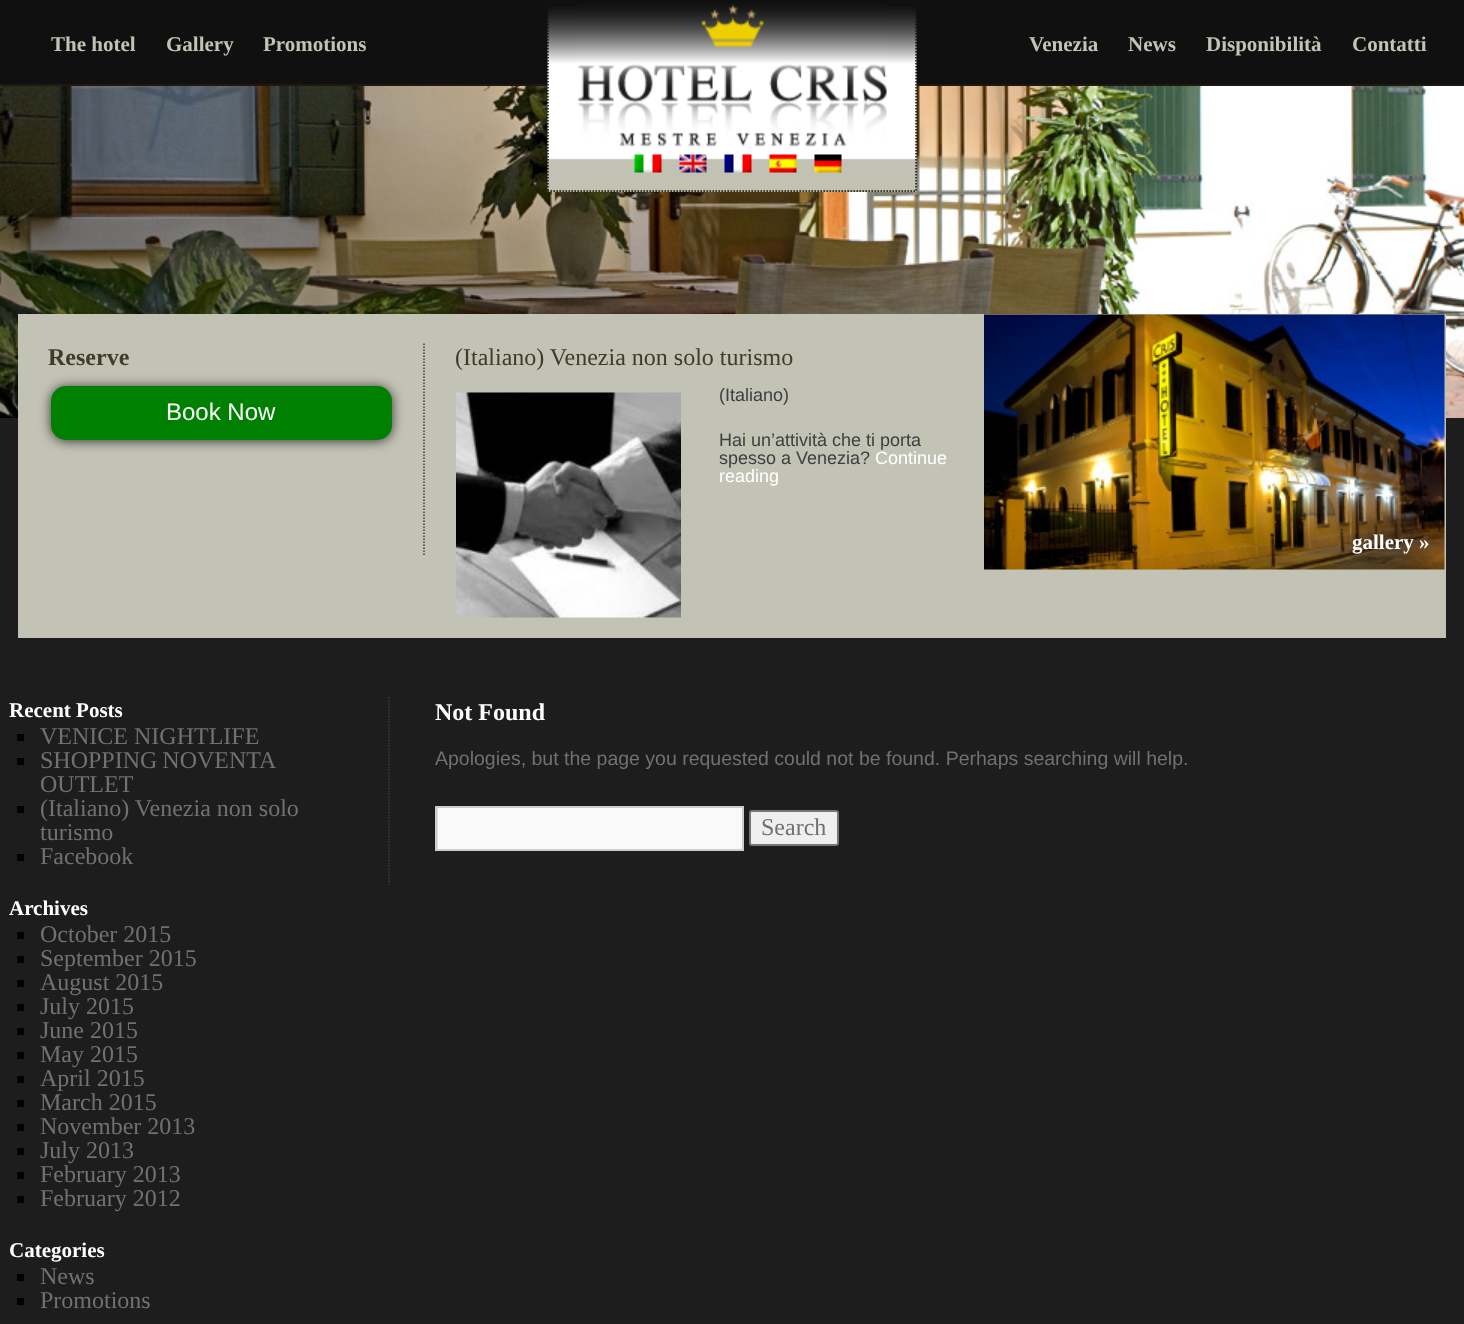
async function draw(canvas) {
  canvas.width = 1464
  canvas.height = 1324
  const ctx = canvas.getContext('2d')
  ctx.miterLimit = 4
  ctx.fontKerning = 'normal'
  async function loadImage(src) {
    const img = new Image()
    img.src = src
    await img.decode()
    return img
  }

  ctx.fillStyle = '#1d1d1d'
  ctx.fillRect(0, 0, 1464, 1324)
  ctx.fillStyle = '#101010'
  ctx.fillRect(0, 0, 1464, 84)
  ctx.fillStyle = '#20170e'
  ctx.fillRect(0, 84, 1464, 2)
  ctx.font = 'bold 21px Liberation Serif'
  ctx.fillStyle = '#c2c3b4'
  ctx.fillText('The hotel', 51, 51)
  ctx.fillText('Gallery', 166, 51)
  ctx.fillText('Promotions', 263, 51)
  ctx.drawImage(await loadImage('image7.png'), 0, 86, 1464, 332)
  ctx.drawImage(await loadImage('image0.png'), 547, 7, 370, 185)
  ctx.beginPath()
  ctx.moveTo(916, 0)
  ctx.lineTo(916, 192)
  ctx.strokeStyle = '#101010'
  ctx.lineWidth = 1.5
  ctx.setLineDash([1.5, 1.5])
  ctx.stroke()
  ctx.beginPath()
  ctx.moveTo(547.5, 191)
  ctx.lineTo(916.5, 191)
  ctx.stroke()
  ctx.beginPath()
  ctx.moveTo(548, 0)
  ctx.lineTo(548, 192)
  ctx.stroke()
  ctx.drawImage(await loadImage('image1.png'), 577, 4, 310, 143)
  ctx.drawImage(await loadImage('image2.png'), 634, 154, 28, 19)
  ctx.drawImage(await loadImage('image3.png'), 679, 154, 28, 19)
  ctx.drawImage(await loadImage('image4.png'), 724, 154, 28, 19)
  ctx.drawImage(await loadImage('image5.png'), 769, 154, 28, 19)
  ctx.drawImage(await loadImage('image6.png'), 814, 154, 28, 19)
  ctx.fillText('Venezia', 1029, 51)
  ctx.fillText('News', 1128, 51)
  ctx.fillText('Disponibilità', 1206, 51)
  ctx.fillText('Contatti', 1352, 51)
  ctx.fillRect(18, 314, 1428, 324)
  ctx.beginPath()
  ctx.moveTo(424, 343.5)
  ctx.lineTo(424, 556.5)
  ctx.strokeStyle = '#413b2b'
  ctx.stroke()
  ctx.font = 'bold 24px Liberation Serif'
  ctx.fillStyle = '#413b2b'
  ctx.fillText('Reserve', 48, 365)
  ctx.fillStyle = '#333'
  ctx.filter = 'blur(6px)'
  ctx.beginPath()
  ctx.roundRect(51, 387, 341, 54, 15)
  ctx.fill()
  ctx.filter = 'none'
  ctx.fillStyle = '#008000'
  ctx.beginPath()
  ctx.roundRect(51, 386, 341, 54, 15)
  ctx.fill()
  ctx.font = '24px Liberation Sans'
  ctx.fillStyle = '#fff'
  ctx.fillText('Book Now', 166, 420)
  ctx.font = '24px Liberation Serif'
  ctx.fillStyle = '#413b2b'
  ctx.fillText('(Italiano) Venezia non solo turismo', 455, 365)
  ctx.drawImage(await loadImage('image8.png'), 456, 392, 225, 226)
  ctx.font = '18px Liberation Sans'
  ctx.fillStyle = '#3e3e40'
  ctx.fillText('(Italiano)', 719, 401)
  ctx.fillText('Hai un’attività che ti porta', 719, 446)
  ctx.fillText('spesso a Venezia?', 719, 464)
  ctx.fillStyle = '#fff'
  ctx.fillText('Continue', 875, 464)
  ctx.fillText('reading', 719, 482)
  ctx.drawImage(await loadImage('image9.png'), 984, 314, 461, 256)
  ctx.font = 'bold 21px Liberation Serif'
  ctx.fillText('gallery »', 1352, 549)
  ctx.fillText('Recent Posts', 9, 717)
  ctx.fillStyle = '#000'
  ctx.fillRect(17, 734, 7, 7)
  ctx.font = '24px Liberation Serif'
  ctx.fillStyle = '#707173'
  ctx.fillText('VENICE NIGHTLIFE', 40, 744)
  ctx.fillStyle = '#000'
  ctx.fillRect(17, 758, 7, 7)
  ctx.wordSpacing = '-1px'
  ctx.fillStyle = '#707173'
  ctx.fillText('SHOPPING NOVENTA', 40, 768)
  ctx.wordSpacing = '0px'
  ctx.fillText('OUTLET', 40, 792)
  ctx.fillStyle = '#000'
  ctx.fillRect(17, 806, 7, 7)
  ctx.fillStyle = '#707173'
  ctx.fillText('(Italiano) Venezia non solo', 40, 816)
  ctx.fillText('turismo', 40, 840)
  ctx.fillStyle = '#000'
  ctx.fillRect(17, 854, 7, 7)
  ctx.fillStyle = '#707173'
  ctx.fillText('Facebook', 40, 864)
  ctx.font = 'bold 21px Liberation Serif'
  ctx.fillStyle = '#fff'
  ctx.fillText('Archives', 9, 915)
  ctx.fillStyle = '#000'
  ctx.fillRect(17, 932, 7, 7)
  ctx.font = '24px Liberation Serif'
  ctx.fillStyle = '#707173'
  ctx.fillText('October 2015', 40, 942)
  ctx.fillStyle = '#000'
  ctx.fillRect(17, 956, 7, 7)
  ctx.fillStyle = '#707173'
  ctx.fillText('September 2015', 40, 966)
  ctx.fillStyle = '#000'
  ctx.fillRect(17, 980, 7, 7)
  ctx.fillStyle = '#707173'
  ctx.fillText('August 2015', 40, 990)
  ctx.fillStyle = '#000'
  ctx.fillRect(17, 1004, 7, 7)
  ctx.fillStyle = '#707173'
  ctx.fillText('July 2015', 40, 1014)
  ctx.fillStyle = '#000'
  ctx.fillRect(17, 1028, 7, 7)
  ctx.fillStyle = '#707173'
  ctx.fillText('June 2015', 40, 1038)
  ctx.fillStyle = '#000'
  ctx.fillRect(17, 1052, 7, 7)
  ctx.fillStyle = '#707173'
  ctx.fillText('May 2015', 40, 1062)
  ctx.fillStyle = '#000'
  ctx.fillRect(17, 1076, 7, 7)
  ctx.fillStyle = '#707173'
  ctx.fillText('April 2015', 40, 1086)
  ctx.fillStyle = '#000'
  ctx.fillRect(17, 1100, 7, 7)
  ctx.fillStyle = '#707173'
  ctx.fillText('March 2015', 40, 1110)
  ctx.fillStyle = '#000'
  ctx.fillRect(17, 1124, 7, 7)
  ctx.fillStyle = '#707173'
  ctx.fillText('November 2013', 40, 1134)
  ctx.fillStyle = '#000'
  ctx.fillRect(17, 1148, 7, 7)
  ctx.fillStyle = '#707173'
  ctx.fillText('July 2013', 40, 1158)
  ctx.fillStyle = '#000'
  ctx.fillRect(17, 1172, 7, 7)
  ctx.fillStyle = '#707173'
  ctx.fillText('February 2013', 40, 1182)
  ctx.fillStyle = '#000'
  ctx.fillRect(17, 1196, 7, 7)
  ctx.fillStyle = '#707173'
  ctx.fillText('February 2012', 40, 1206)
  ctx.font = 'bold 21px Liberation Serif'
  ctx.fillStyle = '#fff'
  ctx.fillText('Categories', 9, 1257)
  ctx.fillStyle = '#000'
  ctx.fillRect(17, 1274, 7, 7)
  ctx.font = '24px Liberation Serif'
  ctx.fillStyle = '#707173'
  ctx.fillText('News', 40, 1284)
  ctx.fillStyle = '#000'
  ctx.fillRect(17, 1298, 7, 7)
  ctx.fillStyle = '#707173'
  ctx.fillText('Promotions', 40, 1308)
  ctx.beginPath()
  ctx.moveTo(389, 697.5)
  ctx.lineTo(389, 886.5)
  ctx.strokeStyle = '#3c3c3e'
  ctx.stroke()
  ctx.font = 'bold 24px Liberation Serif'
  ctx.fillStyle = '#fff'
  ctx.fillText('Not Found', 435, 720)
  ctx.font = '19.5px Liberation Sans'
  ctx.fillStyle = '#707173'
  ctx.fillText('Apologies, but the page you requested could not be found. Perhaps searching will help.', 435, 765)
  ctx.fillStyle = '#f9f9f9'
  ctx.fillRect(438, 808, 304, 41)
  ctx.save()
  ctx.beginPath()
  ctx.rect(437, 807, 306, 42)
  ctx.clip()
  ctx.fillStyle = '#e0e0e0'
  ctx.beginPath()
  ctx.moveTo(288, 658)
  ctx.lineTo(891, 658)
  ctx.lineTo(891, 998)
  ctx.lineTo(288, 998)
  ctx.closePath()
  ctx.moveTo(438, 808)
  ctx.lineTo(744, 808)
  ctx.lineTo(744, 850)
  ctx.lineTo(438, 850)
  ctx.closePath()
  ctx.fill('evenodd')
  ctx.restore()
  ctx.strokeStyle = '#ccc'
  ctx.lineWidth = 2
  ctx.setLineDash([])
  ctx.strokeRect(436, 807, 307, 43)
  ctx.fillStyle = '#efefef'
  ctx.beginPath()
  ctx.roundRect(750, 811, 88, 34, 2)
  ctx.fill()
  ctx.strokeStyle = '#767676'
  ctx.stroke()
  ctx.font = '24px Liberation Serif'
  ctx.fillStyle = '#707173'
  ctx.fillText('Search', 761, 835)
}

draw(document.querySelector('canvas'))
